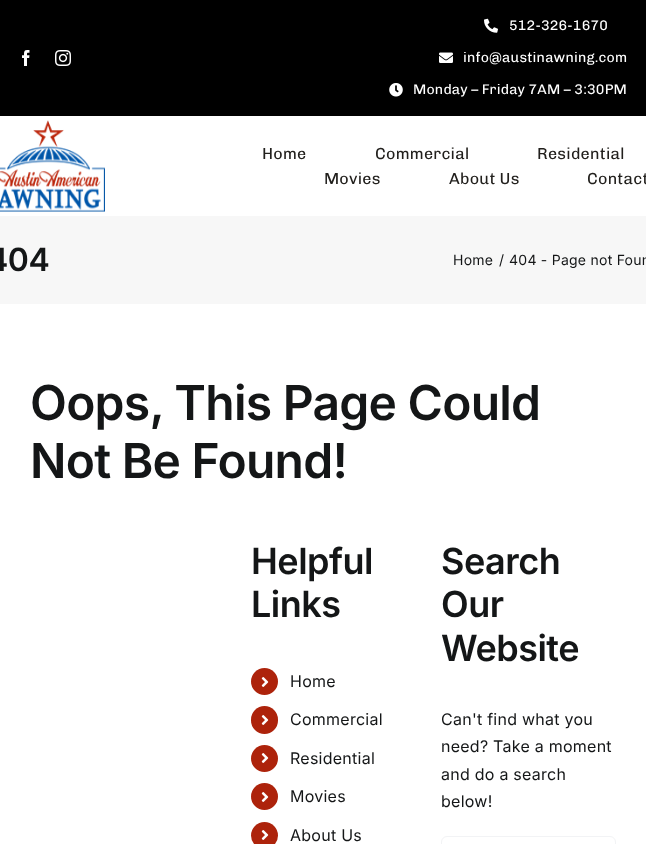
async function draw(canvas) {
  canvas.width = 646
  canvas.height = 844
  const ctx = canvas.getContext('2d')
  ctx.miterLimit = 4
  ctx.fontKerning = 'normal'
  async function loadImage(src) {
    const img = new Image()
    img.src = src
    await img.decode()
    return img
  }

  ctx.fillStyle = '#fff'
  ctx.fillRect(0, 0, 646, 844)
  ctx.fillStyle = '#000'
  ctx.fillRect(0, 0, 646, 116)
  ctx.drawImage(await loadImage('image0.png'), 22, 50, 8, 16)
  ctx.drawImage(await loadImage('image1.png'), 55, 50, 16, 16)
  ctx.drawImage(await loadImage('image2.png'), 484, 18, 14, 15)
  ctx.letterSpacing = '0.2px'
  ctx.font = '500 14px Chivo'
  ctx.fillStyle = '#fff'
  ctx.fillText('512-326-1670', 509, 30)
  ctx.drawImage(await loadImage('image3.png'), 439, 52, 14, 11)
  ctx.fillText('info@austinawning.com', 463, 62)
  ctx.drawImage(await loadImage('image4.png'), 389, 83, 14, 14)
  ctx.fillText('Monday – Friday 7AM – 3:30PM', 413, 94)
  ctx.drawImage(await loadImage('image5.png'), 0, 120, 105, 92)
  ctx.letterSpacing = '0.25px'
  ctx.font = '500 16px Chivo'
  ctx.fillStyle = '#22201d'
  ctx.fillText('Home', 262, 159)
  ctx.fillText('Commercial', 375, 159)
  ctx.fillText('Residential', 537, 159)
  ctx.fillText('Movies', 324, 184)
  ctx.fillText('About Us', 449, 184)
  ctx.fillText('Contact', 587, 184)
  ctx.fillStyle = '#f7f7f7'
  ctx.fillRect(0, 216, 646, 88)
  ctx.letterSpacing = '-0.5px'
  ctx.font = '600 32px Inter'
  ctx.fillStyle = '#141617'
  ctx.fillText('404', -13, 271)
  ctx.letterSpacing = '0.25px'
  ctx.font = '14px Inter'
  ctx.fillText('Home', 453, 265)
  ctx.fillText('/', 499, 265)
  ctx.fillText('404 - Page not Foun', 509, 265)
  ctx.letterSpacing = '-0.75px'
  ctx.font = '600 48px Inter'
  ctx.fillText('Oops, This Page Could', 30, 420)
  ctx.fillText('Not Be Found!', 30, 478)
  ctx.letterSpacing = '-0.5px'
  ctx.font = '600 36px Inter'
  ctx.fillText('Helpful', 251, 574)
  ctx.fillText('Links', 251, 617)
  ctx.fillStyle = '#ad230b'
  ctx.beginPath()
  ctx.arc(264.5, 681.5, 13.5, 0, 2 * Math.PI)
  ctx.fill()
  ctx.drawImage(await loadImage('image6.png'), 261, 677, 8, 10)
  ctx.letterSpacing = '0.25px'
  ctx.font = '16px Inter'
  ctx.fillStyle = '#141617'
  ctx.fillText('Home', 290, 687)
  ctx.fillStyle = '#ad230b'
  ctx.beginPath()
  ctx.roundRect(251, 706, 27, 28, 13.5)
  ctx.fill()
  ctx.drawImage(await loadImage('image6.png'), 261, 715, 8, 10)
  ctx.fillStyle = '#141617'
  ctx.fillText('Commercial', 290, 725)
  ctx.fillStyle = '#ad230b'
  ctx.beginPath()
  ctx.arc(264.5, 758.5, 13.5, 0, 2 * Math.PI)
  ctx.fill()
  ctx.drawImage(await loadImage('image6.png'), 261, 753, 8, 10)
  ctx.fillStyle = '#141617'
  ctx.fillText('Residential', 290, 764)
  ctx.fillStyle = '#ad230b'
  ctx.beginPath()
  ctx.arc(264.5, 796.5, 13.5, 0, 2 * Math.PI)
  ctx.fill()
  ctx.drawImage(await loadImage('image6.png'), 261, 792, 8, 10)
  ctx.fillStyle = '#141617'
  ctx.fillText('Movies', 290, 802)
  ctx.fillStyle = '#ad230b'
  ctx.beginPath()
  ctx.arc(264.5, 835.5, 13.5, 0, 2 * Math.PI)
  ctx.fill()
  ctx.drawImage(await loadImage('image6.png'), 261, 830, 8, 10)
  ctx.fillStyle = '#141617'
  ctx.fillText('About Us', 290, 841)
  ctx.letterSpacing = '-0.5px'
  ctx.font = '600 36px Inter'
  ctx.fillText('Search', 441, 574)
  ctx.fillText('Our', 441, 617)
  ctx.fillText('Website', 441, 661)
  ctx.letterSpacing = '0.25px'
  ctx.font = '16px Inter'
  ctx.fillText('Can\'t find what you', 441, 725)
  ctx.fillText('need? Take a moment', 441, 752)
  ctx.fillText('and do a search', 441, 780)
  ctx.fillText('below!', 441, 807)
  ctx.beginPath()
  ctx.roundRect(441.5, 836.5, 174, 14, 5.5)
  ctx.strokeStyle = '#f2f3f5'
  ctx.stroke()
}

draw(document.querySelector('canvas'))
